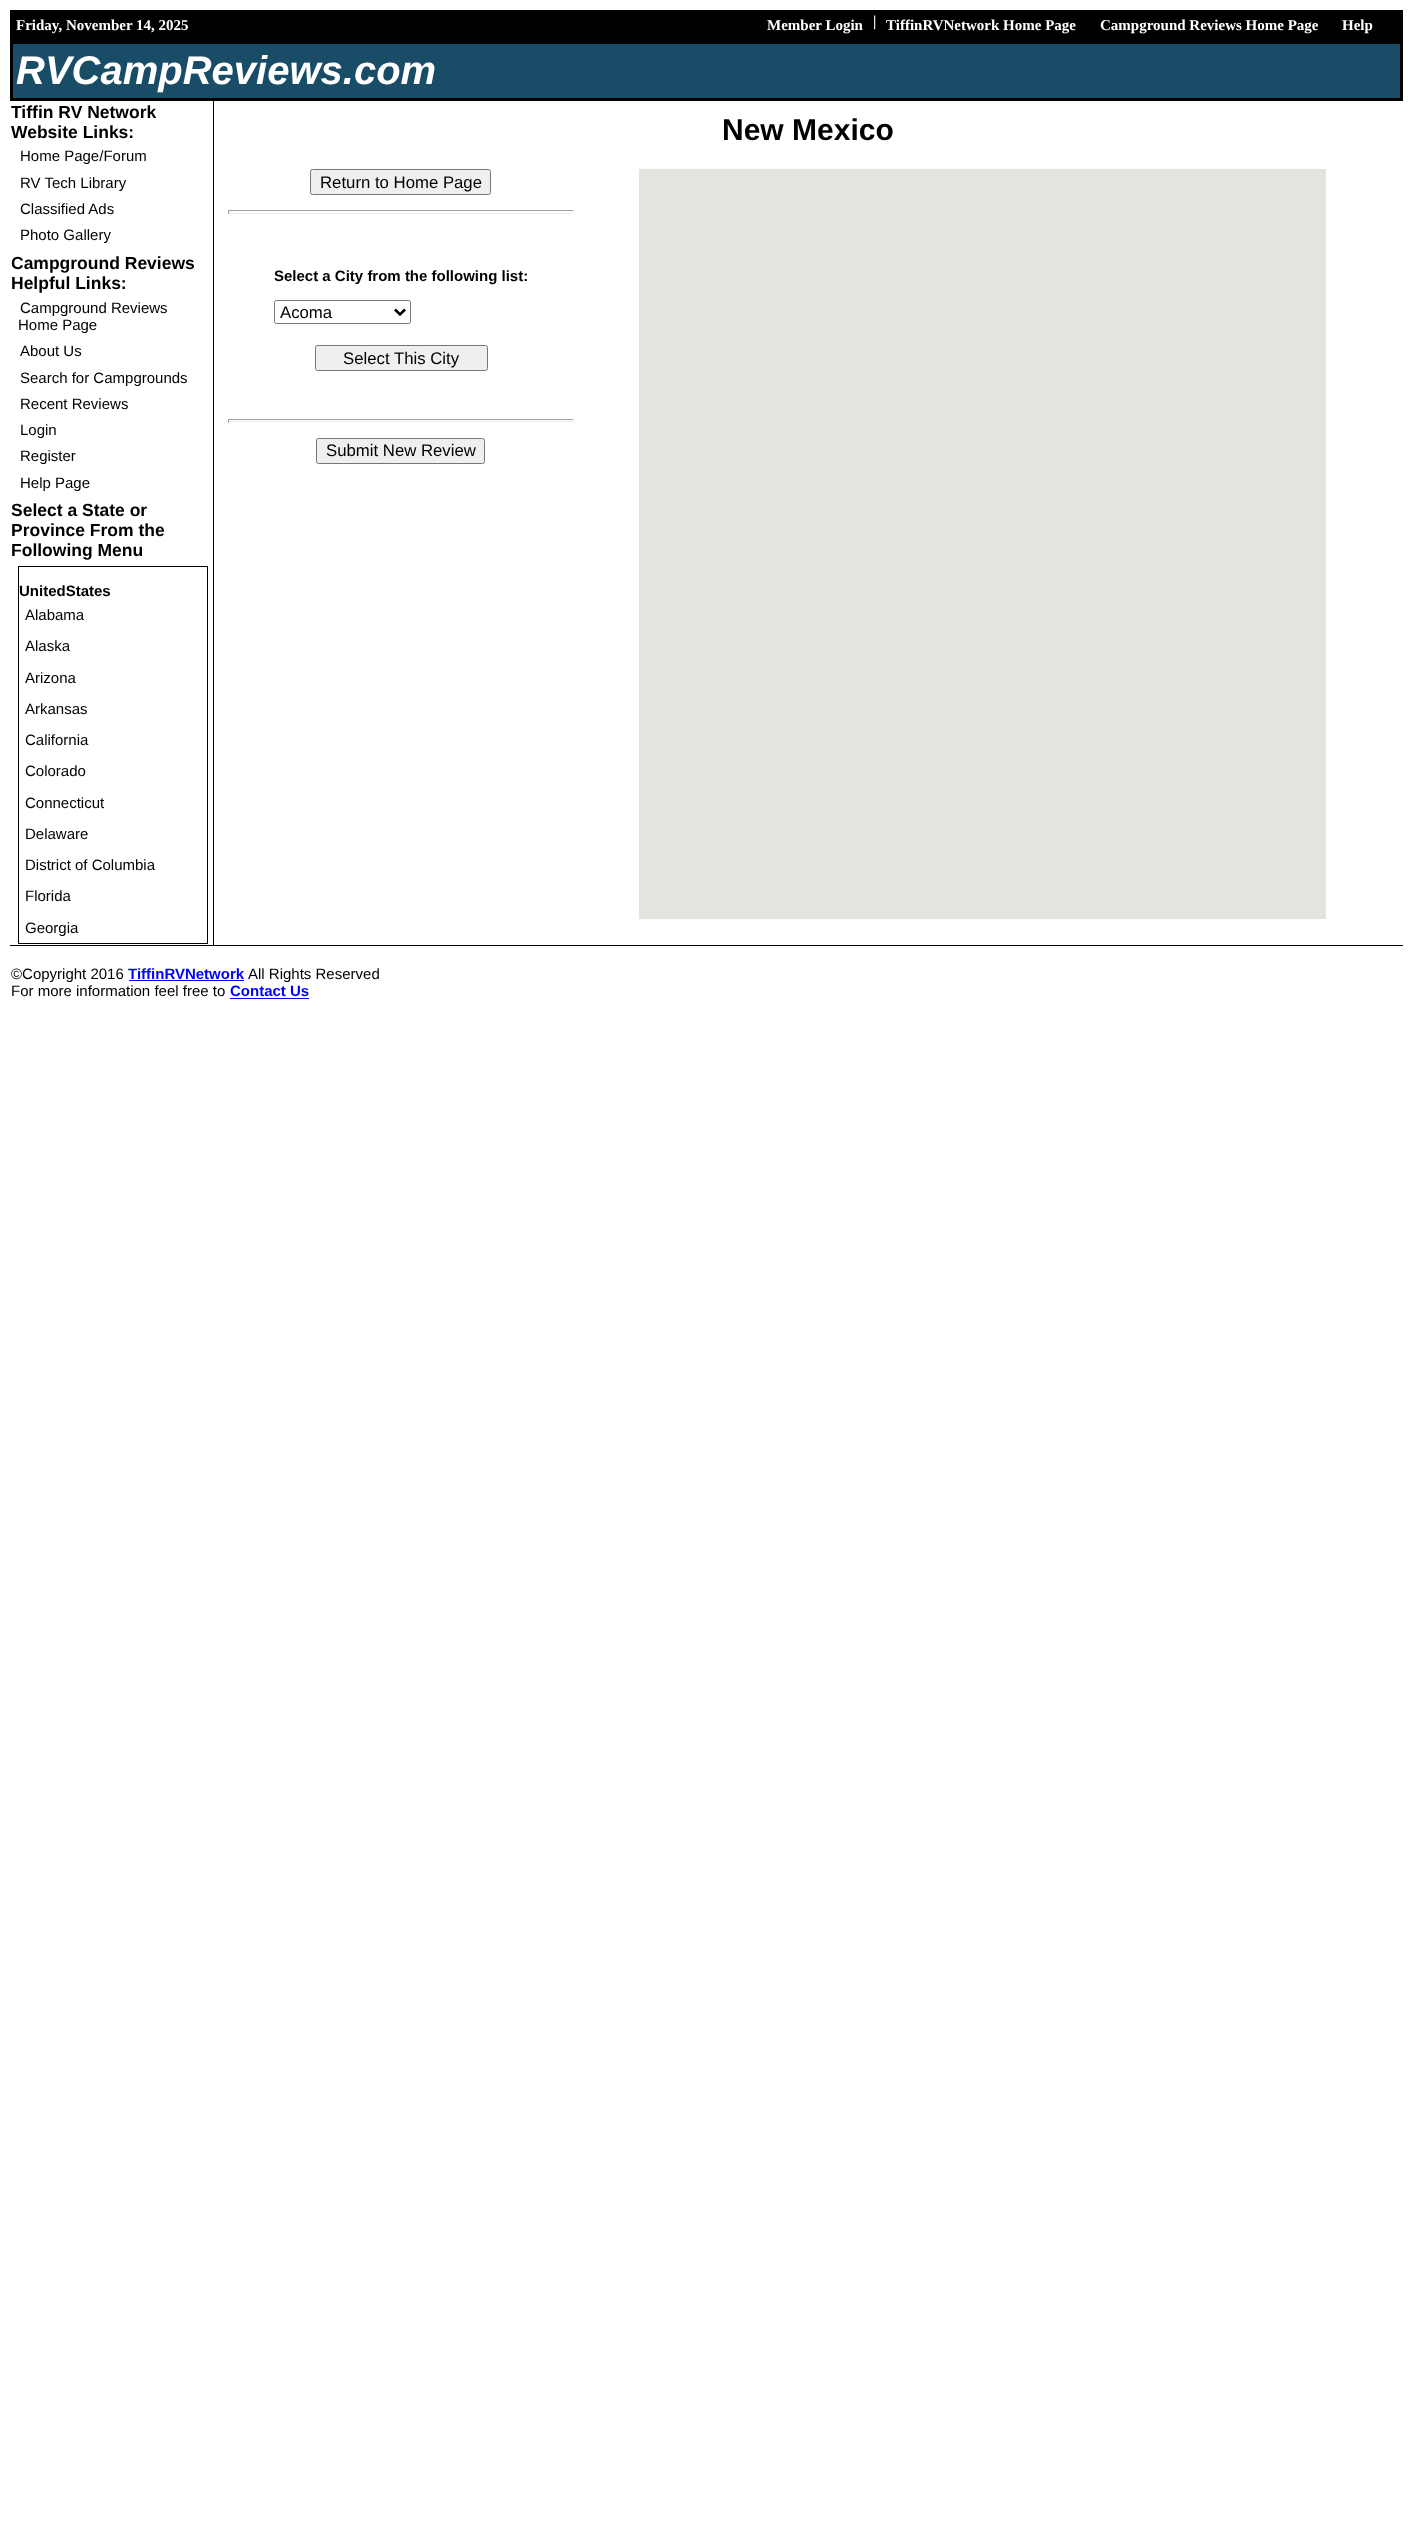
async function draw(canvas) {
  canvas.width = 1412
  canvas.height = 2532
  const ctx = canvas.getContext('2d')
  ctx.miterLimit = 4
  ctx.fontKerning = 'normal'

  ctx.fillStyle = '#fff'
  ctx.fillRect(0, 0, 1412, 2532)
  ctx.fillStyle = '#000'
  ctx.fillRect(10, 10, 1393, 34)
  ctx.font = 'bold 15px Liberation Serif'
  ctx.fillStyle = '#fff'
  ctx.fillText('Friday, November 14, 2025', 16, 30)
  ctx.fillText('Member Login', 767, 30)
  ctx.fillText('|', 873, 26)
  ctx.fillText('TiffinRVNetwork Home Page', 886, 30)
  ctx.fillText('Campground Reviews Home Page', 1100, 30)
  ctx.fillText('Help', 1342, 30)
  ctx.fillStyle = '#194c66'
  ctx.fillRect(13, 44, 1387, 54)
  ctx.fillStyle = '#000'
  ctx.fillRect(1400, 41, 3, 59)
  ctx.fillRect(10, 98, 1393, 3)
  ctx.fillRect(10, 41, 3, 59)
  ctx.font = 'italic bold 40px Liberation Sans'
  ctx.fillStyle = '#fff'
  ctx.fillText('RVCampReviews.com', 16, 84)
  ctx.fillStyle = '#000'
  ctx.fillRect(213, 100, 1, 846)
  ctx.font = 'bold 17.5px Liberation Sans'
  ctx.fillText('Tiffin RV Network', 11, 118)
  ctx.fillText('Website Links:', 11, 138)
  ctx.font = '15px Liberation Sans'
  ctx.fillText('Home Page/Forum', 20, 161)
  ctx.fillText('RV Tech Library', 20, 188)
  ctx.fillText('Classified Ads', 20, 214)
  ctx.fillText('Photo Gallery', 20, 240)
  ctx.font = 'bold 17.5px Liberation Sans'
  ctx.fillText('Campground Reviews', 11, 269)
  ctx.fillText('Helpful Links:', 11, 289)
  ctx.font = '15px Liberation Sans'
  ctx.fillText('Campground Reviews', 20, 313)
  ctx.fillText('Home Page', 18, 330)
  ctx.fillText('About Us', 20, 356)
  ctx.fillText('Search for Campgrounds', 20, 383)
  ctx.fillText('Recent Reviews', 20, 409)
  ctx.fillText('Login', 20, 435)
  ctx.fillText('Register', 20, 461)
  ctx.fillText('Help Page', 20, 488)
  ctx.font = 'bold 17.5px Liberation Sans'
  ctx.fillText('Select a State or', 11, 516)
  ctx.fillText('Province From the', 11, 536)
  ctx.fillText('Following Menu', 11, 556)
  ctx.strokeStyle = '#000'
  ctx.strokeRect(18.5, 566.5, 189, 377)
  ctx.font = 'bold 15px Liberation Sans'
  ctx.fillText('UnitedStates', 19, 596)
  ctx.font = '15px Liberation Sans'
  ctx.fillText('Alabama', 25, 620)
  ctx.fillText('Alaska', 25, 651)
  ctx.fillText('Arizona', 25, 683)
  ctx.fillText('Arkansas', 25, 714)
  ctx.fillText('California', 25, 745)
  ctx.fillText('Colorado', 25, 776)
  ctx.fillText('Connecticut', 25, 808)
  ctx.fillText('Delaware', 25, 839)
  ctx.fillText('District of Columbia', 25, 870)
  ctx.fillText('Florida', 25, 901)
  ctx.fillText('Georgia', 25, 933)
  ctx.font = 'bold 30px Liberation Sans'
  ctx.fillText('New Mexico', 722, 140)
  ctx.fillStyle = '#efefef'
  ctx.beginPath()
  ctx.roundRect(310.5, 169.5, 180, 25, 2)
  ctx.fill()
  ctx.strokeStyle = '#767676'
  ctx.stroke()
  ctx.font = '16.75px Liberation Sans'
  ctx.fillStyle = '#000'
  ctx.fillText('Return to Home Page', 320, 188)
  ctx.fillStyle = '#9f9f9f'
  ctx.fillRect(228, 210, 346, 1)
  ctx.fillStyle = '#eee'
  ctx.fillRect(573, 210, 1, 4)
  ctx.fillRect(228, 213, 346, 1)
  ctx.fillStyle = '#9f9f9f'
  ctx.fillRect(228, 210, 1, 4)
  ctx.font = 'bold 15px Liberation Sans'
  ctx.fillStyle = '#000'
  ctx.fillText('Select a City from the following list:', 274, 281)
  ctx.beginPath()
  ctx.roundRect(274.5, 300.5, 136, 23, 2)
  ctx.stroke()
  ctx.beginPath()
  ctx.moveTo(395, 309.5)
  ctx.lineTo(400, 314.5)
  ctx.lineTo(405, 309.5)
  ctx.strokeStyle = '#000'
  ctx.lineWidth = 2.5
  ctx.stroke()
  ctx.font = '16.75px Liberation Sans'
  ctx.fillText('Acoma', 280, 318)
  ctx.fillStyle = '#efefef'
  ctx.beginPath()
  ctx.roundRect(315.5, 345.5, 172, 25, 2)
  ctx.fill()
  ctx.strokeStyle = '#767676'
  ctx.lineWidth = 1
  ctx.stroke()
  ctx.fillStyle = '#000'
  ctx.fillText('Select This City', 343, 364)
  ctx.fillStyle = '#9f9f9f'
  ctx.fillRect(228, 419, 346, 1)
  ctx.fillStyle = '#eee'
  ctx.fillRect(573, 419, 1, 4)
  ctx.fillRect(228, 421, 346, 1)
  ctx.fillStyle = '#9f9f9f'
  ctx.fillRect(228, 419, 1, 4)
  ctx.fillStyle = '#efefef'
  ctx.beginPath()
  ctx.roundRect(316.5, 438.5, 168, 25, 2)
  ctx.fill()
  ctx.stroke()
  ctx.fillStyle = '#000'
  ctx.fillText('Submit New Review', 326, 456)
  ctx.fillStyle = '#e5e3df'
  ctx.fillRect(639, 169, 687, 750)
  ctx.fillStyle = '#000'
  ctx.fillRect(10, 945, 1393, 1)
  ctx.font = '15px Liberation Sans'
  ctx.fillText('©Copyright 2016', 11, 979)
  ctx.font = 'bold 15px Liberation Sans'
  ctx.fillStyle = '#00f'
  ctx.fillText('TiffinRVNetwork', 128, 979)
  ctx.fillRect(129, 980, 115, 1)
  ctx.font = '15px Liberation Sans'
  ctx.fillStyle = '#000'
  ctx.fillText('All Rights Reserved', 248, 979)
  ctx.fillText('For more information feel free to', 11, 996)
  ctx.font = 'bold 15px Liberation Sans'
  ctx.fillStyle = '#00f'
  ctx.fillText('Contact Us', 230, 996)
  ctx.fillRect(230, 998, 79, 1)
}

draw(document.querySelector('canvas'))
